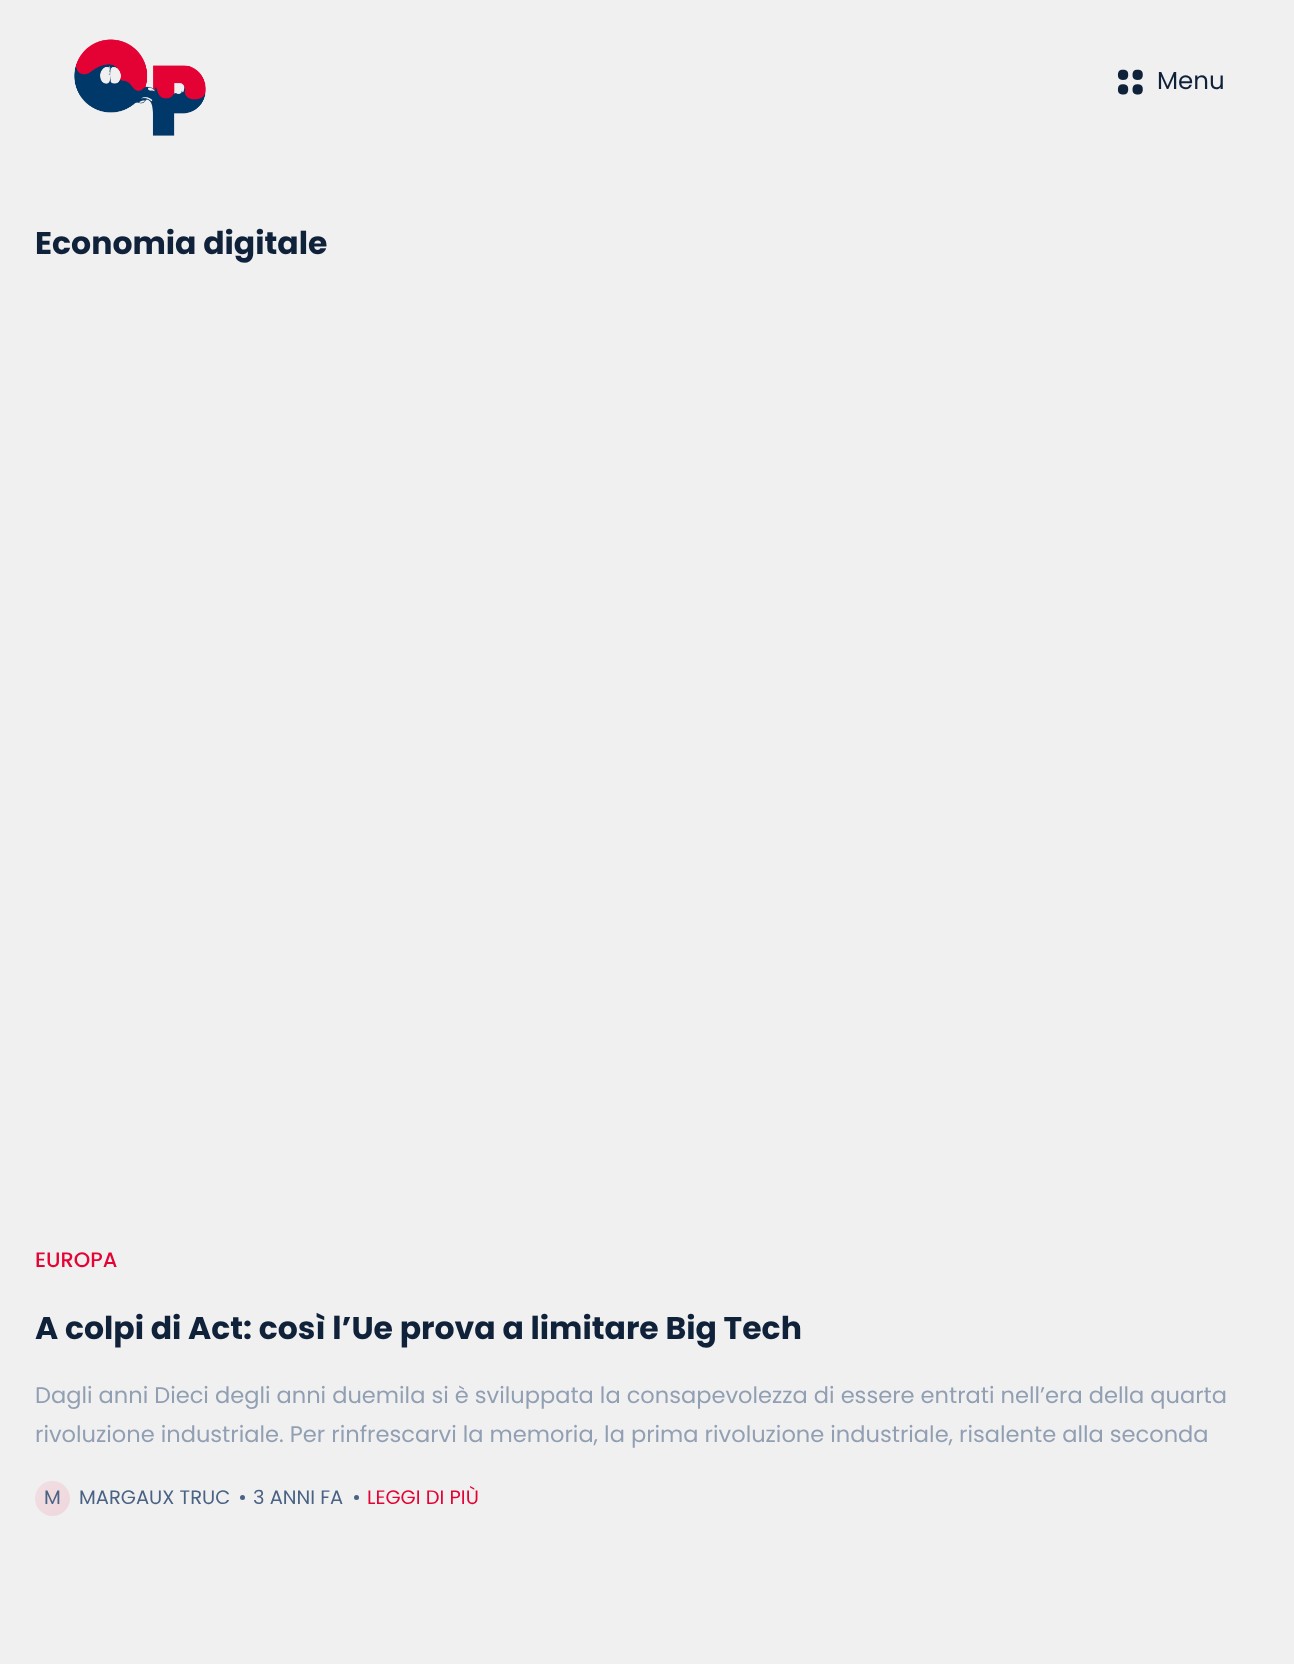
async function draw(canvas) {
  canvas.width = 1294
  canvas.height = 1664
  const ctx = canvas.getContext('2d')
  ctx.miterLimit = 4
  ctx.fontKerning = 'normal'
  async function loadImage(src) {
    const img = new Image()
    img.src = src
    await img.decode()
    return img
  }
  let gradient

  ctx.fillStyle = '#f1f0f0'
  ctx.fillRect(0, 0, 1294, 1664)
  ctx.drawImage(await loadImage('image0.png'), 74, 39, 132, 97)
  ctx.drawImage(await loadImage('image1.png'), 1117, 69, 26, 26)
  ctx.font = '24.5px Poppins'
  ctx.fillStyle = '#0f223a'
  ctx.fillText('Menu', 1157, 89)
  ctx.font = 'bold 31.5px Poppins'
  ctx.fillText('Economia digitale', 35, 254)
  ctx.font = '500 21px Poppins'
  ctx.fillStyle = '#e40335'
  ctx.fillText('EUROPA', 35, 1267)
  ctx.font = 'bold 31.5px Poppins'
  ctx.fillStyle = '#0f223a'
  ctx.fillText('A colpi di Act: così l’Ue prova a limitare Big Tech', 35, 1339)
  ctx.font = '22.55px Poppins'
  ctx.fillStyle = '#919fb3'
  ctx.fillText('Dagli anni Dieci degli anni duemila si è sviluppata la consapevolezza di essere entrati nell’era della quarta', 35, 1403)
  ctx.fillText('rivoluzione industriale. Per rinfrescarvi la memoria, la prima rivoluzione industriale, risalente alla seconda', 35, 1442)
  gradient = ctx.createLinearGradient(945, 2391, -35, 1411)
  gradient.addColorStop(0, '#e40335')
  gradient.addColorStop(1, '#f1f0f0')
  ctx.fillStyle = gradient
  ctx.beginPath()
  ctx.arc(52.5, 1498.5, 17.5, 0, 2 * Math.PI)
  ctx.fill()
  ctx.font = '19.5px Poppins'
  ctx.fillStyle = '#4a6385'
  ctx.fillText('M', 44, 1504)
  ctx.fillText('MARGAUX TRUC', 79, 1504)
  ctx.beginPath()
  ctx.arc(242.5, 1497.5, 2.5, 0, 2 * Math.PI)
  ctx.fill()
  ctx.fillText('3 ANNI FA', 253, 1504)
  ctx.beginPath()
  ctx.arc(356.5, 1497.5, 2.5, 0, 2 * Math.PI)
  ctx.fill()
  ctx.fillStyle = '#e40335'
  ctx.fillText('LEGGI DI PIÙ', 367, 1504)
}

draw(document.querySelector('canvas'))
